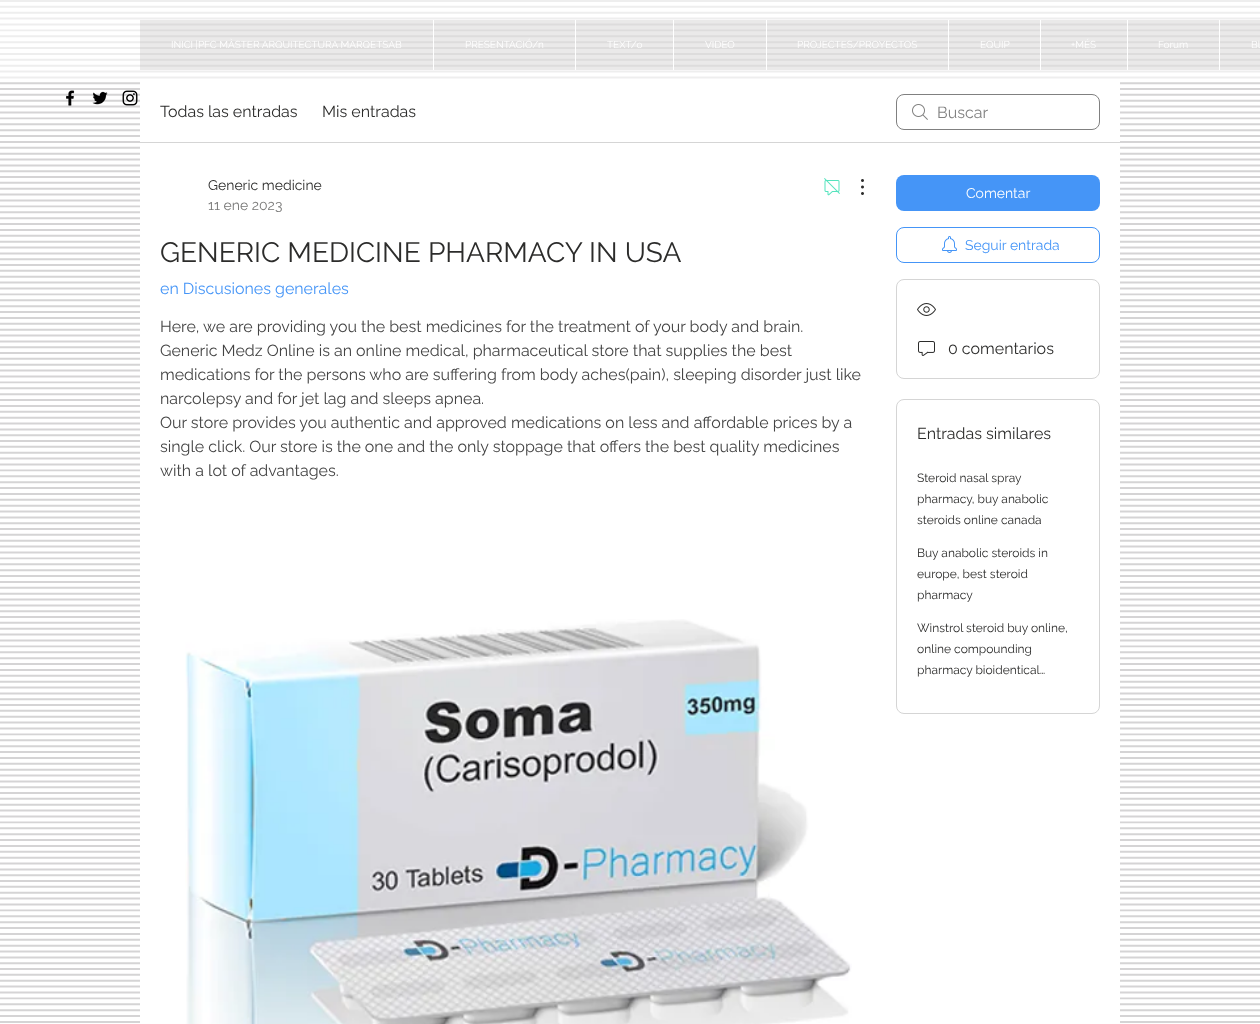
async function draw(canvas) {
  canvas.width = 1260
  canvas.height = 1024
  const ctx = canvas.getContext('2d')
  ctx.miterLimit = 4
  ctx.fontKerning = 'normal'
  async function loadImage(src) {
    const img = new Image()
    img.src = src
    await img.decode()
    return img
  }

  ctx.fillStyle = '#fff'
  ctx.fillRect(0, 0, 1260, 1024)
  ctx.drawImage(await loadImage('image0.png'), 0, 0, 1260, 1023)
  ctx.fillStyle = '#ffffff99'
  ctx.fillRect(0, 0, 1260, 79)
  ctx.fillStyle = '#aca9a942'
  ctx.fillRect(140, 20, 1120, 50)
  ctx.font = '10px Raleway'
  ctx.fillStyle = '#fff'
  ctx.fillText('INICI |PFC MÀSTER ARQUITECTURA MARQETSAB', 171, 48)
  ctx.fillRect(433, 20, 1, 50)
  ctx.fillText('PRESENTACIÓ/n', 465, 48)
  ctx.fillRect(575, 20, 1, 50)
  ctx.fillText('TEXT/o', 607, 48)
  ctx.fillRect(673, 20, 1, 50)
  ctx.fillText('VIDEO', 705, 48)
  ctx.fillRect(766, 20, 1, 50)
  ctx.fillText('PROJECTES/PROYECTOS', 797, 48)
  ctx.fillRect(948, 20, 1, 50)
  ctx.fillText('EQUIP', 980, 48)
  ctx.fillRect(1040, 20, 1, 50)
  ctx.fillText('+MÉS', 1071, 48)
  ctx.fillRect(1127, 20, 1, 50)
  ctx.fillText('Forum', 1158, 48)
  ctx.fillRect(1219, 20, 1, 50)
  ctx.fillText('Bl', 1251, 48)
  ctx.drawImage(await loadImage('image1.png'), 66, 90, 9, 16)
  ctx.drawImage(await loadImage('image2.png'), 92, 91, 16, 14)
  ctx.drawImage(await loadImage('image3.png'), 122, 90, 16, 16)
  ctx.fillRect(140, 82, 980, 941)
  ctx.fillStyle = '#d5d5d5'
  ctx.fillRect(140, 142, 980, 1)
  ctx.font = '16px Raleway'
  ctx.fillStyle = '#2c2c2b'
  ctx.fillText('Todas las entradas', 160, 117)
  ctx.fillText('Mis entradas', 322, 117)
  ctx.drawImage(await loadImage('image4.png'), 912, 104, 16, 16)
  ctx.beginPath()
  ctx.roundRect(896.5, 94.5, 203, 35, 7.5)
  ctx.strokeStyle = '#808080'
  ctx.stroke()
  ctx.fillStyle = '#808080'
  ctx.fillText('Buscar', 937, 118)
  ctx.font = '14px Raleway'
  ctx.fillStyle = '#2c2c2b'
  ctx.fillText('Generic medicine', 208, 190)
  ctx.fillStyle = '#787877'
  ctx.fillText('11 ene 2023', 208, 210)
  ctx.drawImage(await loadImage('image5.png'), 824, 178, 16, 18)
  ctx.drawImage(await loadImage('image6.png'), 861, 179, 3, 16)
  ctx.font = '28px Raleway'
  ctx.fillStyle = '#2c2c2b'
  ctx.fillText('GENERIC MEDICINE PHARMACY IN USA', 160, 262)
  ctx.font = '16px Raleway'
  ctx.fillStyle = '#4595f7'
  ctx.fillText('en Discusiones generales', 160, 294)
  ctx.fillStyle = '#444'
  ctx.fillText('Here, we are providing you the best medicines for the treatment of your body and brain.', 160, 332)
  ctx.fillText('Generic Medz Online is an online medical, pharmaceutical store that supplies the best', 160, 356)
  ctx.fillText('medications for the persons who are suffering from body aches(pain), sleeping disorder just like', 160, 380)
  ctx.fillText('narcolepsy and for jet lag and sleeps apnea.', 160, 404)
  ctx.fillText('Our store provides you authentic and approved medications on less and affordable prices by a', 160, 428)
  ctx.fillText('single click. Our store is the one and the only stoppage that offers the best quality medicines', 160, 452)
  ctx.fillText('with a lot of advantages.', 160, 476)
  ctx.drawImage(await loadImage('image7.png'), 185, 619, 667, 405)
  ctx.fillStyle = '#4595f7'
  ctx.beginPath()
  ctx.roundRect(896, 175, 204, 36, 8)
  ctx.fill()
  ctx.font = '14px Raleway'
  ctx.fillStyle = '#fff'
  ctx.fillText('Comentar', 966, 198)
  ctx.beginPath()
  ctx.roundRect(896.5, 227.5, 203, 35, 7.5)
  ctx.strokeStyle = '#4595f7'
  ctx.stroke()
  ctx.drawImage(await loadImage('image8.png'), 942, 236, 15, 17)
  ctx.fillStyle = '#4595f7'
  ctx.fillText('Seguir entrada', 965, 250)
  ctx.beginPath()
  ctx.roundRect(896.5, 279.5, 203, 99, 7.5)
  ctx.strokeStyle = '#d5d5d5'
  ctx.stroke()
  ctx.drawImage(await loadImage('image9.png'), 917, 303, 19, 13)
  ctx.drawImage(await loadImage('image10.png'), 918, 341, 17, 15)
  ctx.font = '16px Raleway'
  ctx.fillStyle = '#2c2c2b'
  ctx.fillText('0 comentarios', 948, 354)
  ctx.beginPath()
  ctx.roundRect(896.5, 399.5, 203, 314, 7.5)
  ctx.stroke()
  ctx.fillText('Entradas similares', 917, 439)
  ctx.font = '12px Raleway'
  ctx.fillText('Steroid nasal spray', 917, 482)
  ctx.fillText('pharmacy, buy anabolic', 917, 503)
  ctx.fillText('steroids online canada', 917, 524)
  ctx.fillText('Buy anabolic steroids in', 917, 557)
  ctx.fillText('europe, best steroid', 917, 578)
  ctx.fillText('pharmacy', 917, 599)
  ctx.fillText('Winstrol steroid buy online,', 917, 632)
  ctx.fillText('online compounding', 917, 653)
  ctx.fillText('pharmacy bioidentical…', 917, 674)
}

draw(document.querySelector('canvas'))
